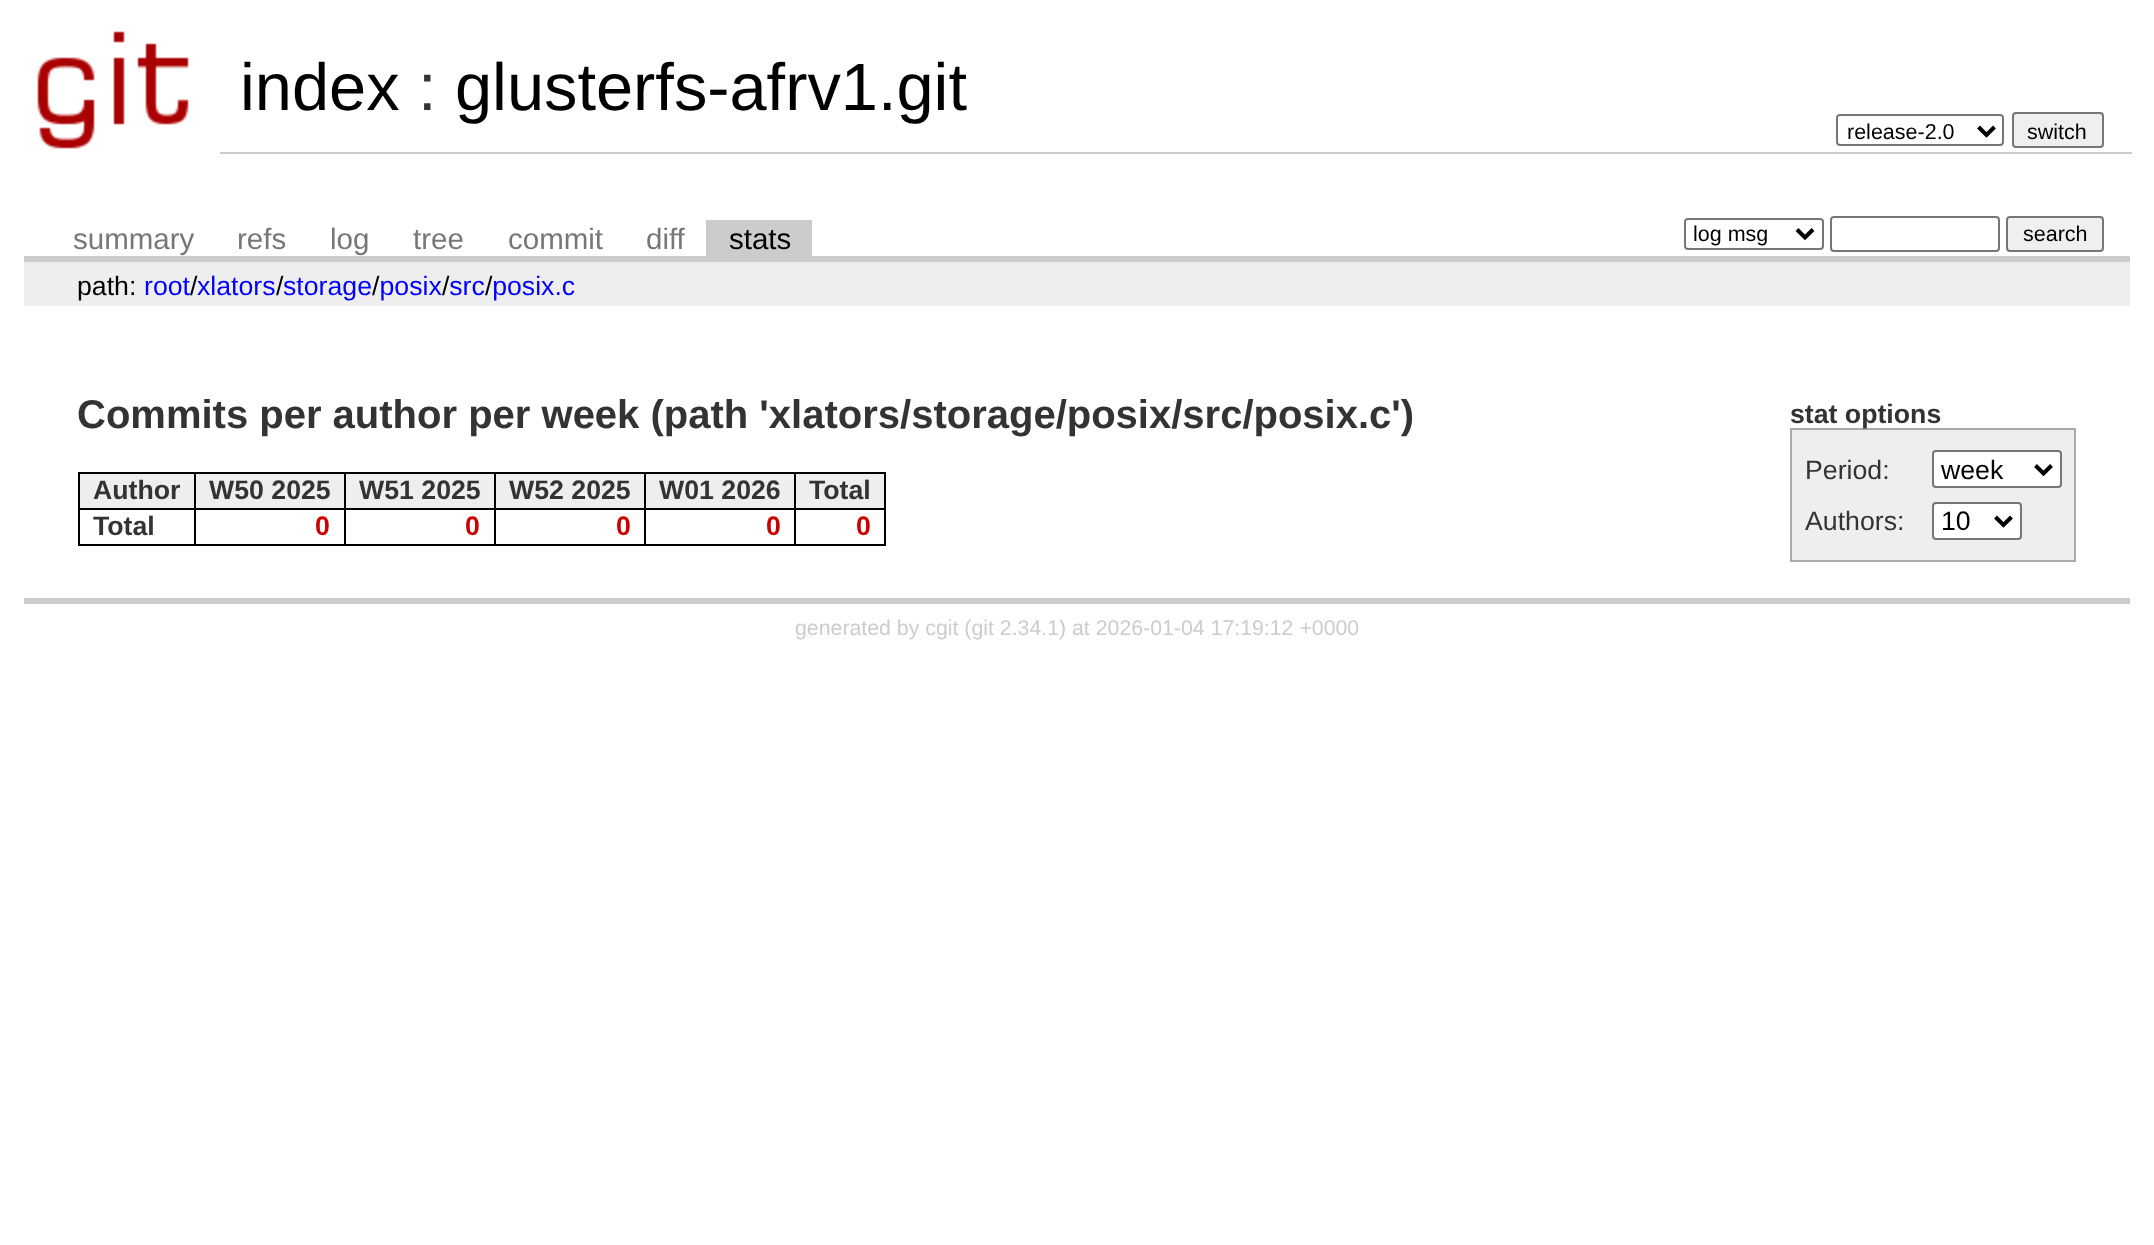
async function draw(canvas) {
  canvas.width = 2154
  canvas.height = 1245
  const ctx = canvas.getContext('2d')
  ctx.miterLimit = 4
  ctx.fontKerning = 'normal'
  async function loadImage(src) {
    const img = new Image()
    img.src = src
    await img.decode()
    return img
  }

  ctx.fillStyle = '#fff'
  ctx.fillRect(0, 0, 2154, 1245)
  ctx.drawImage(await loadImage('image0.png'), 37, 31, 152, 118)
  ctx.font = '66.75px Liberation Sans'
  ctx.fillStyle = '#000'
  ctx.fillText('index', 240, 110)
  ctx.fillStyle = '#333'
  ctx.fillText(':', 418, 110)
  ctx.fillStyle = '#000'
  ctx.fillText('glusterfs-afrv1.git', 455, 110)
  ctx.beginPath()
  ctx.roundRect(1837, 115, 166, 30, 3)
  ctx.strokeStyle = '#767676'
  ctx.lineWidth = 2
  ctx.stroke()
  ctx.beginPath()
  ctx.moveTo(1978.5, 127)
  ctx.lineTo(1986.5, 135)
  ctx.lineTo(1994.5, 127)
  ctx.strokeStyle = '#000'
  ctx.lineWidth = 4
  ctx.stroke()
  ctx.font = '21.5px Liberation Sans'
  ctx.fillText('release-2.0', 1847, 139)
  ctx.fillStyle = '#efefef'
  ctx.beginPath()
  ctx.roundRect(2013, 113, 90, 34, 3)
  ctx.fill()
  ctx.strokeStyle = '#767676'
  ctx.lineWidth = 2
  ctx.stroke()
  ctx.fillStyle = '#000'
  ctx.fillText('switch', 2027, 139)
  ctx.fillStyle = '#ccc'
  ctx.fillRect(220, 152, 1912, 2)
  ctx.fillRect(24, 256, 2106, 6)
  ctx.font = '29.5px Liberation Sans'
  ctx.fillStyle = '#777'
  ctx.fillText('summary', 73, 249)
  ctx.fillText('refs', 237, 249)
  ctx.fillText('log', 330, 249)
  ctx.fillText('tree', 413, 249)
  ctx.fillText('commit', 508, 249)
  ctx.fillText('diff', 646, 249)
  ctx.fillStyle = '#ccc'
  ctx.fillRect(706, 220, 106, 36)
  ctx.fillStyle = '#000'
  ctx.fillText('stats', 729, 249)
  ctx.beginPath()
  ctx.roundRect(1685, 219, 138, 30, 3)
  ctx.stroke()
  ctx.beginPath()
  ctx.moveTo(1797, 229.5)
  ctx.lineTo(1805, 237.5)
  ctx.lineTo(1813, 229.5)
  ctx.strokeStyle = '#000'
  ctx.lineWidth = 4
  ctx.stroke()
  ctx.font = '21.5px Liberation Sans'
  ctx.fillText('log msg', 1693, 241)
  ctx.beginPath()
  ctx.roundRect(1831, 217, 168, 34, 3)
  ctx.strokeStyle = '#767676'
  ctx.lineWidth = 2
  ctx.stroke()
  ctx.fillStyle = '#efefef'
  ctx.beginPath()
  ctx.roundRect(2007, 217, 96, 34, 3)
  ctx.fill()
  ctx.stroke()
  ctx.fillStyle = '#000'
  ctx.fillText('search', 2023, 241)
  ctx.fillStyle = '#eee'
  ctx.fillRect(24, 262, 2106, 44)
  ctx.font = '26.7px Liberation Sans'
  ctx.fillStyle = '#000'
  ctx.fillText('path:', 77, 295)
  ctx.fillText('/', 190, 295)
  ctx.fillStyle = '#00f'
  ctx.fillText('xlators storage posix src posix.c', 197, 295)
  ctx.fillText('root', 144, 295)
  ctx.fillStyle = '#000'
  ctx.fillText('/', 276, 295)
  ctx.fillText('/', 372, 295)
  ctx.fillText('/', 442, 295)
  ctx.fillText('/', 485, 295)
  ctx.fillStyle = '#ccc'
  ctx.fillRect(24, 598, 2106, 6)
  ctx.font = 'bold 40px Liberation Sans'
  ctx.fillStyle = '#333'
  ctx.fillText('Commits per author per week (path \'xlators/storage/posix/src/posix.c\')', 77, 428)
  ctx.fillStyle = '#aaa'
  ctx.fillRect(1790, 428, 286, 2)
  ctx.fillRect(2074, 428, 2, 134)
  ctx.fillRect(1790, 560, 286, 2)
  ctx.fillRect(1790, 428, 2, 134)
  ctx.font = 'bold 26.7px Liberation Sans'
  ctx.fillStyle = '#333'
  ctx.fillText('stat options', 1790, 423)
  ctx.fillStyle = '#eee'
  ctx.fillRect(1792, 430, 282, 130)
  ctx.font = '26.7px Liberation Sans'
  ctx.fillStyle = '#333'
  ctx.fillText('Period:', 1805, 479)
  ctx.fillStyle = '#fff'
  ctx.beginPath()
  ctx.roundRect(1933, 451, 128, 36, 3)
  ctx.fill()
  ctx.stroke()
  ctx.beginPath()
  ctx.moveTo(2035.5, 465.5)
  ctx.lineTo(2043.5, 473.5)
  ctx.lineTo(2051.5, 465.5)
  ctx.strokeStyle = '#000'
  ctx.lineWidth = 4
  ctx.stroke()
  ctx.fillStyle = '#000'
  ctx.fillText('week', 1941, 479)
  ctx.fillStyle = '#333'
  ctx.fillText('Authors:', 1805, 530)
  ctx.fillStyle = '#fff'
  ctx.beginPath()
  ctx.roundRect(1933, 503, 88, 36, 3)
  ctx.fill()
  ctx.strokeStyle = '#767676'
  ctx.lineWidth = 2
  ctx.stroke()
  ctx.beginPath()
  ctx.moveTo(1995.5, 517)
  ctx.lineTo(2003.5, 525)
  ctx.lineTo(2011.5, 517)
  ctx.strokeStyle = '#000'
  ctx.lineWidth = 4
  ctx.stroke()
  ctx.fillStyle = '#000'
  ctx.fillText('10', 1941, 530)
  ctx.fillRect(78, 472, 808, 2)
  ctx.fillRect(884, 472, 2, 74)
  ctx.fillRect(78, 544, 808, 2)
  ctx.fillRect(78, 472, 2, 74)
  ctx.fillStyle = '#eee'
  ctx.fillRect(80, 474, 114, 34)
  ctx.font = 'bold 26.7px Liberation Sans'
  ctx.fillStyle = '#333'
  ctx.fillText('Author', 93, 499)
  ctx.fillStyle = '#eee'
  ctx.fillRect(196, 474, 148, 34)
  ctx.fillStyle = '#000'
  ctx.fillRect(794, 508, 92, 2)
  ctx.fillRect(794, 508, 2, 38)
  ctx.fillRect(644, 508, 152, 2)
  ctx.fillRect(644, 508, 2, 38)
  ctx.fillRect(494, 508, 152, 2)
  ctx.fillRect(494, 508, 2, 38)
  ctx.fillRect(344, 508, 152, 2)
  ctx.fillRect(344, 508, 2, 38)
  ctx.fillRect(194, 508, 152, 2)
  ctx.fillRect(194, 508, 2, 38)
  ctx.fillRect(78, 508, 118, 2)
  ctx.fillRect(194, 472, 2, 38)
  ctx.fillStyle = '#333'
  ctx.fillText('W50 2025', 209, 499)
  ctx.fillStyle = '#eee'
  ctx.fillRect(346, 474, 148, 34)
  ctx.fillStyle = '#000'
  ctx.fillRect(344, 472, 2, 38)
  ctx.fillStyle = '#333'
  ctx.fillText('W51 2025', 359, 499)
  ctx.fillStyle = '#eee'
  ctx.fillRect(496, 474, 148, 34)
  ctx.fillStyle = '#000'
  ctx.fillRect(494, 472, 2, 38)
  ctx.fillStyle = '#333'
  ctx.fillText('W52 2025', 509, 499)
  ctx.fillStyle = '#eee'
  ctx.fillRect(646, 474, 148, 34)
  ctx.fillStyle = '#000'
  ctx.fillRect(644, 472, 2, 38)
  ctx.fillStyle = '#333'
  ctx.fillText('W01 2026', 659, 499)
  ctx.fillStyle = '#eee'
  ctx.fillRect(796, 474, 88, 34)
  ctx.fillStyle = '#000'
  ctx.fillRect(794, 472, 2, 38)
  ctx.fillStyle = '#333'
  ctx.fillText('Total', 809, 499)
  ctx.fillText('Total', 93, 535)
  ctx.fillStyle = '#c00'
  ctx.fillText('0', 315, 535)
  ctx.fillText('0', 465, 535)
  ctx.fillText('0', 616, 535)
  ctx.fillText('0', 766, 535)
  ctx.fillText('0', 856, 535)
  ctx.font = '21.3px Liberation Sans'
  ctx.fillStyle = '#ccc'
  ctx.fillText('generated by cgit (git 2.34.1) at 2026-01-04 17:19:12 +0000', 795, 635)
}

draw(document.querySelector('canvas'))
